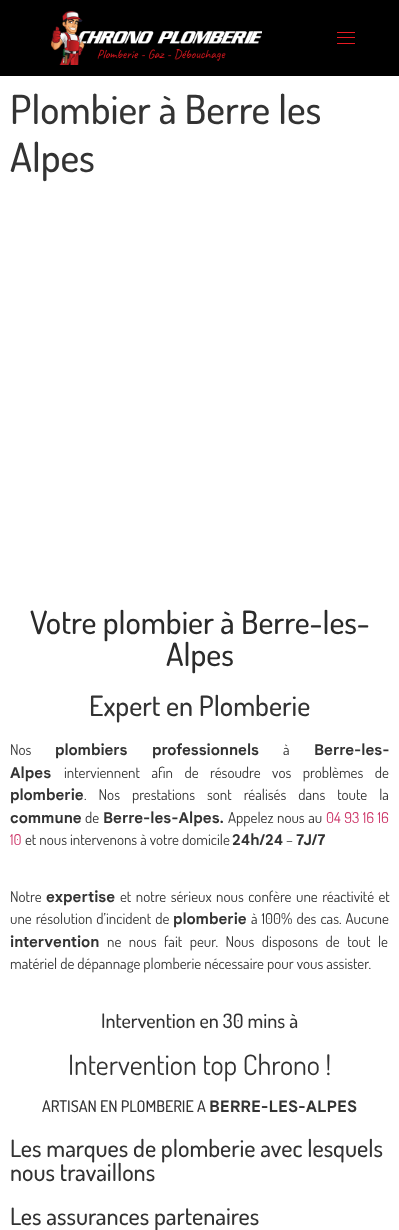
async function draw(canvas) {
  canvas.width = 399
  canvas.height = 1230
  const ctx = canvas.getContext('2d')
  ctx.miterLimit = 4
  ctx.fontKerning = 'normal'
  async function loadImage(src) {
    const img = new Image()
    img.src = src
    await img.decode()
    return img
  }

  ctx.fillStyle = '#fff'
  ctx.fillRect(0, 0, 399, 1230)
  ctx.fillStyle = '#000'
  ctx.fillRect(0, 0, 399, 76)
  ctx.drawImage(await loadImage('image0.png'), 51, 11, 211, 54)
  ctx.fillStyle = '#e81a22'
  ctx.fillRect(337, 32, 18, 1)
  ctx.fillRect(337, 37, 18, 1)
  ctx.fillRect(337, 43, 18, 1)
  ctx.font = '500 40px Dosis'
  ctx.fillStyle = '#333'
  ctx.fillText('Plombier à Berre les', 10, 124)
  ctx.fillText('Alpes', 10, 172)
  ctx.font = '500 32px Dosis'
  ctx.fillStyle = '#2b2b2b'
  ctx.fillText('Votre plombier à Berre-les-', 30, 634)
  ctx.fillText('Alpes', 166, 666)
  ctx.font = '500 28px Dosis'
  ctx.fillStyle = '#333'
  ctx.fillText('Expert en Plomberie', 89, 716)
  ctx.font = '15px Dosis'
  ctx.fillText('Nos', 10, 755)
  ctx.font = 'bold 15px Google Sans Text'
  ctx.fillText('plombiers', 55, 755)
  ctx.fillText('professionnels', 152, 755)
  ctx.font = '15px Dosis'
  ctx.fillText('à', 283, 755)
  ctx.font = 'bold 15px Google Sans Text'
  ctx.fillText('Berre-les-', 314, 755)
  ctx.fillText('Alpes', 10, 778)
  ctx.wordSpacing = '8.5px'
  ctx.font = '15px Dosis'
  ctx.fillText('interviennent afin de résoudre vos problèmes de', 64, 778)
  ctx.wordSpacing = '0px'
  ctx.font = 'bold 15px Google Sans Text'
  ctx.fillText('plomberie', 10, 800)
  ctx.wordSpacing = '9px'
  ctx.font = '15px Dosis'
  ctx.fillText('. Nos prestations sont réalisés dans toute la', 84, 800)
  ctx.wordSpacing = '0px'
  ctx.font = 'bold 15px Google Sans Text'
  ctx.fillText('commune', 10, 823)
  ctx.font = '15px Dosis'
  ctx.fillText('de', 85, 823)
  ctx.font = 'bold 15px Google Sans Text'
  ctx.fillText('Berre-les-Alpes.', 103, 823)
  ctx.wordSpacing = '0.5px'
  ctx.font = '15px Dosis'
  ctx.fillText('Appelez nous au', 228, 823)
  ctx.fillStyle = '#c36'
  ctx.fillText('04 93 16 16', 326, 823)
  ctx.wordSpacing = '0px'
  ctx.fillText('10', 10, 845)
  ctx.fillStyle = '#333'
  ctx.fillText('et nous intervenons à votre domicile', 25, 845)
  ctx.font = 'bold 15px Google Sans Text'
  ctx.fillText('24h/24', 232, 845)
  ctx.font = '15px Dosis'
  ctx.fillText('–', 286, 845)
  ctx.font = 'bold 15px Google Sans Text'
  ctx.fillText('7J/7', 296, 845)
  ctx.font = '15px Dosis'
  ctx.fillText('Notre', 10, 902)
  ctx.font = 'bold 15px Google Sans Text'
  ctx.fillText('expertise', 46, 902)
  ctx.wordSpacing = '1.5px'
  ctx.font = '15px Dosis'
  ctx.fillText('et notre sérieux nous confère une réactivité et', 120, 902)
  ctx.wordSpacing = '1px'
  ctx.fillText('une résolution d’incident de', 10, 924)
  ctx.wordSpacing = '0px'
  ctx.font = 'bold 15px Google Sans Text'
  ctx.fillText('plomberie', 173, 924)
  ctx.wordSpacing = '1px'
  ctx.font = '15px Dosis'
  ctx.fillText('à 100% des cas. Aucune', 251, 924)
  ctx.wordSpacing = '0px'
  ctx.font = 'bold 15px Google Sans Text'
  ctx.fillText('intervention', 10, 947)
  ctx.wordSpacing = '4.5px'
  ctx.font = '15px Dosis'
  ctx.fillText('ne nous fait peur. Nous disposons de tout le', 107, 947)
  ctx.wordSpacing = '0px'
  ctx.fillText('matériel de dépannage plomberie nécessaire pour vous assister.', 10, 969)
  ctx.font = '500 20px Dosis'
  ctx.fillText('Intervention en 30 mins à', 101, 1028)
  ctx.font = '28px Dosis'
  ctx.fillText('Intervention top Chrono !', 68, 1075)
  ctx.font = '500 16px Dosis'
  ctx.fillText('ARTISAN EN PLOMBERIE A', 42, 1112)
  ctx.font = 'bold 16px Google Sans Text'
  ctx.fillText('BERRE-LES-ALPES', 209, 1112)
  ctx.font = '500 24px Dosis'
  ctx.fillText('Les marques de plomberie avec lesquels', 10, 1157)
  ctx.fillText('nous travaillons', 10, 1181)
  ctx.fillText('Les assurances partenaires', 10, 1225)
}

draw(document.querySelector('canvas'))
